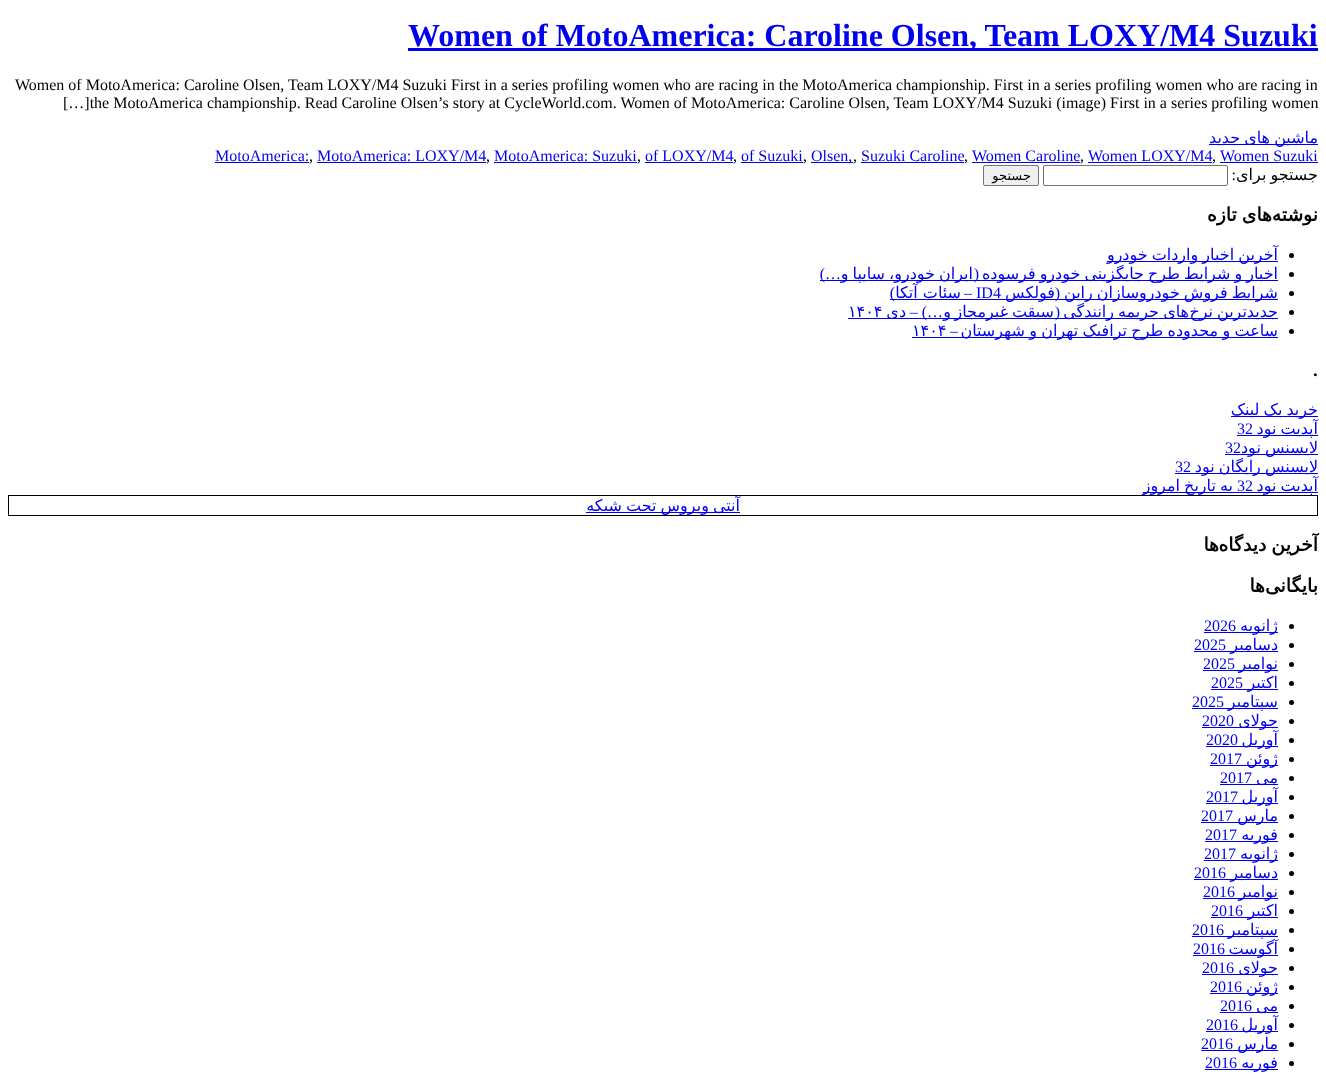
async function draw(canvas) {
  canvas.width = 1326
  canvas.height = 1076
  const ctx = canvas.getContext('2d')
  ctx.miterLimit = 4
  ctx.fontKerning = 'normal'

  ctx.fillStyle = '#fff'
  ctx.fillRect(0, 0, 1326, 1076)
  ctx.fillStyle = '#00e'
  ctx.fillRect(408, 48, 910, 3)
  ctx.font = 'bold 32px Liberation Serif'
  ctx.fillText('Women of MotoAmerica: Caroline Olsen, Team LOXY/M4 Suzuki', 408, 46)
  ctx.font = '16px Liberation Serif'
  ctx.fillStyle = '#000'
  ctx.fillText('Women of MotoAmerica: Caroline Olsen, Team LOXY/M4 Suzuki First in a series profiling women who are racing in the MotoAmerica championship. First in a series profiling women who are racing in', 15, 90)
  ctx.fillText('[…]the MotoAmerica championship. Read Caroline Olsen’s story at CycleWorld.com. Women of MotoAmerica: Caroline Olsen, Team LOXY/M4 Suzuki (image) First in a series profiling women', 63, 108)
  ctx.fillStyle = '#00e'
  ctx.fillRect(1209, 144, 109, 1)
  ctx.wordSpacing = '-1px'
  ctx.direction = 'rtl'
  ctx.font = '16px DejaVu Sans'
  ctx.fillText('ماشین های جدید', 1318, 143)
  ctx.wordSpacing = '0px'
  ctx.direction = 'ltr'
  ctx.font = '16px Liberation Serif'
  ctx.fillText('MotoAmerica:', 215, 161)
  ctx.fillRect(215, 162, 94, 1)
  ctx.fillStyle = '#000'
  ctx.fillText(',', 309, 161)
  ctx.fillStyle = '#00e'
  ctx.fillText('MotoAmerica: LOXY/M4', 317, 161)
  ctx.fillRect(317, 162, 169, 1)
  ctx.fillStyle = '#000'
  ctx.fillText(',', 486, 161)
  ctx.fillStyle = '#00e'
  ctx.fillText('MotoAmerica: Suzuki', 494, 161)
  ctx.fillRect(494, 162, 143, 1)
  ctx.fillStyle = '#000'
  ctx.fillText(',', 637, 161)
  ctx.fillStyle = '#00e'
  ctx.fillText('of LOXY/M4', 645, 161)
  ctx.fillRect(645, 162, 88, 1)
  ctx.fillStyle = '#000'
  ctx.fillText(',', 733, 161)
  ctx.fillStyle = '#00e'
  ctx.fillText('of Suzuki', 741, 161)
  ctx.fillRect(741, 162, 62, 1)
  ctx.fillStyle = '#000'
  ctx.fillText(',', 803, 161)
  ctx.fillStyle = '#00e'
  ctx.fillRect(811, 162, 42, 1)
  ctx.fillText('Olsen,', 811, 161)
  ctx.fillStyle = '#000'
  ctx.fillText(',', 853, 161)
  ctx.fillStyle = '#00e'
  ctx.fillText('Suzuki Caroline', 861, 161)
  ctx.fillRect(861, 162, 103, 1)
  ctx.fillStyle = '#000'
  ctx.fillText(',', 964, 161)
  ctx.fillStyle = '#00e'
  ctx.fillText('Women Caroline', 972, 161)
  ctx.fillRect(972, 162, 108, 1)
  ctx.fillStyle = '#000'
  ctx.fillText(',', 1080, 161)
  ctx.fillStyle = '#00e'
  ctx.fillText('Women LOXY/M4', 1088, 161)
  ctx.fillRect(1088, 162, 124, 1)
  ctx.fillStyle = '#000'
  ctx.fillText(',', 1212, 161)
  ctx.fillStyle = '#00e'
  ctx.fillText('Women Suzuki', 1220, 161)
  ctx.fillRect(1220, 162, 98, 1)
  ctx.fillStyle = '#efefef'
  ctx.beginPath()
  ctx.roundRect(983.5, 165.5, 55, 20, 1.5)
  ctx.fill()
  ctx.strokeStyle = '#767676'
  ctx.stroke()
  ctx.direction = 'rtl'
  ctx.font = '13px DejaVu Sans'
  ctx.fillStyle = '#000'
  ctx.fillText('جستجو', 1031, 180)
  ctx.beginPath()
  ctx.roundRect(1043.5, 165.5, 184, 20, 1.5)
  ctx.stroke()
  ctx.font = '16px Liberation Serif'
  ctx.fillText(':', 1236, 180)
  ctx.wordSpacing = '-1px'
  ctx.font = '16px DejaVu Sans'
  ctx.fillText('جستجو برای', 1318, 180)
  ctx.font = 'bold 18.75px DejaVu Sans'
  ctx.fillText('های تازه', 1272, 221)
  ctx.wordSpacing = '0px'
  ctx.fillText('نوشته', 1318, 221)
  ctx.fillStyle = '#00e'
  ctx.fillRect(1107, 261, 171, 1)
  ctx.wordSpacing = '-1px'
  ctx.font = '16px DejaVu Sans'
  ctx.fillText('آخرین اخبار واردات خودرو', 1278, 260)
  ctx.fillStyle = '#000'
  ctx.beginPath()
  ctx.arc(1291.5, 255.5, 2.5, 0, 2 * Math.PI)
  ctx.fill()
  ctx.fillStyle = '#00e'
  ctx.fillRect(820, 280, 458, 1)
  ctx.wordSpacing = '0px'
  ctx.font = '16px Liberation Serif'
  ctx.fillText('…)', 841, 279)
  ctx.wordSpacing = '-1px'
  ctx.font = '16px DejaVu Sans'
  ctx.fillText('ایران خودرو، سایپا و', 973, 279)
  ctx.wordSpacing = '0px'
  ctx.font = '16px Liberation Serif'
  ctx.fillText('(', 979, 279)
  ctx.wordSpacing = '-1px'
  ctx.font = '16px DejaVu Sans'
  ctx.fillText('اخبار و شرایط طرح جایگزینی خودرو فرسوده', 1278, 279)
  ctx.fillStyle = '#000'
  ctx.beginPath()
  ctx.arc(1291.5, 274.5, 2.5, 0, 2 * Math.PI)
  ctx.fill()
  ctx.fillStyle = '#00e'
  ctx.fillRect(890, 299, 388, 1)
  ctx.wordSpacing = '0px'
  ctx.font = '16px Liberation Serif'
  ctx.fillText(')', 895, 298)
  ctx.font = '16px DejaVu Sans'
  ctx.fillText('سئات آتکا', 961, 298)
  ctx.font = '16px Liberation Serif'
  ctx.fillText('–', 972, 298)
  ctx.direction = 'ltr'
  ctx.fillText('ID4', 976, 298)
  ctx.direction = 'rtl'
  ctx.font = '16px DejaVu Sans'
  ctx.fillText('فولکس', 1055, 298)
  ctx.font = '16px Liberation Serif'
  ctx.fillText('(', 1060, 298)
  ctx.wordSpacing = '-1px'
  ctx.font = '16px DejaVu Sans'
  ctx.fillText('شرایط فروش خودروسازان راین', 1278, 298)
  ctx.fillStyle = '#000'
  ctx.beginPath()
  ctx.arc(1291.5, 293.5, 2.5, 0, 2 * Math.PI)
  ctx.fill()
  ctx.wordSpacing = '0px'
  ctx.direction = 'ltr'
  ctx.fillStyle = '#00e'
  ctx.fillText('۱۴۰۴', 848, 317)
  ctx.fillRect(848, 318, 430, 1)
  ctx.direction = 'rtl'
  ctx.fillText('دی', 906, 317)
  ctx.font = '16px Liberation Serif'
  ctx.fillText('…) –', 943, 317)
  ctx.font = '16px DejaVu Sans'
  ctx.fillText('و', 951, 317)
  ctx.fillText('غیرمجاز', 1008, 317)
  ctx.fillText('سبقت', 1054, 317)
  ctx.font = '16px Liberation Serif'
  ctx.fillText('(', 1060, 317)
  ctx.font = '16px DejaVu Sans'
  ctx.fillText('رانندگی', 1114, 317)
  ctx.fillText('جریمه', 1159, 317)
  ctx.fillText('های', 1189, 317)
  ctx.fillText('نرخ', 1213, 317)
  ctx.fillText('جدیدترین', 1278, 317)
  ctx.fillStyle = '#000'
  ctx.beginPath()
  ctx.arc(1291.5, 312.5, 2.5, 0, 2 * Math.PI)
  ctx.fill()
  ctx.direction = 'ltr'
  ctx.fillStyle = '#00e'
  ctx.fillText('۱۴۰۴', 912, 336)
  ctx.direction = 'rtl'
  ctx.font = '16px Liberation Serif'
  ctx.fillText('–', 958, 336)
  ctx.fillRect(912, 337, 366, 1)
  ctx.wordSpacing = '-0.75px'
  ctx.font = '16px DejaVu Sans'
  ctx.fillText('ساعت و محدوده طرح ترافیک تهران و شهرستان', 1278, 336)
  ctx.fillStyle = '#000'
  ctx.beginPath()
  ctx.arc(1291.5, 331.5, 2.5, 0, 2 * Math.PI)
  ctx.fill()
  ctx.wordSpacing = '0px'
  ctx.direction = 'ltr'
  ctx.font = 'bold 18.75px Liberation Serif'
  ctx.fillText('.', 1313, 376)
  ctx.fillStyle = '#00e'
  ctx.fillRect(1231, 416, 87, 1)
  ctx.wordSpacing = '-1px'
  ctx.direction = 'rtl'
  ctx.font = '16px DejaVu Sans'
  ctx.fillText('خرید بک لینک', 1318, 415)
  ctx.wordSpacing = '0px'
  ctx.direction = 'ltr'
  ctx.font = '16px Liberation Serif'
  ctx.fillText('32', 1237, 434)
  ctx.fillRect(1237, 435, 81, 1)
  ctx.wordSpacing = '-1px'
  ctx.direction = 'rtl'
  ctx.font = '16px DejaVu Sans'
  ctx.fillText('آپدیت نود', 1318, 434)
  ctx.wordSpacing = '0px'
  ctx.direction = 'ltr'
  ctx.font = '16px Liberation Serif'
  ctx.fillText('32', 1225, 453)
  ctx.fillRect(1225, 454, 93, 1)
  ctx.wordSpacing = '-1px'
  ctx.direction = 'rtl'
  ctx.font = '16px DejaVu Sans'
  ctx.fillText('لایسنس نود', 1318, 453)
  ctx.wordSpacing = '0px'
  ctx.direction = 'ltr'
  ctx.font = '16px Liberation Serif'
  ctx.fillText('32', 1175, 472)
  ctx.fillRect(1175, 473, 143, 1)
  ctx.wordSpacing = '-1px'
  ctx.direction = 'rtl'
  ctx.font = '16px DejaVu Sans'
  ctx.fillText('لایسنس رایگان نود', 1318, 472)
  ctx.fillRect(1143, 492, 175, 1)
  ctx.fillText('به تاریخ امروز', 1233, 491)
  ctx.wordSpacing = '0px'
  ctx.direction = 'ltr'
  ctx.font = '16px Liberation Serif'
  ctx.fillText('32', 1237, 491)
  ctx.wordSpacing = '-1px'
  ctx.direction = 'rtl'
  ctx.font = '16px DejaVu Sans'
  ctx.fillText('آپدیت نود', 1318, 491)
  ctx.strokeStyle = '#000'
  ctx.strokeRect(8.5, 495.5, 1309, 20)
  ctx.fillRect(586, 512, 154, 1)
  ctx.fillText('آنتی ویروس تحت شبکه', 740, 511)
  ctx.wordSpacing = '0px'
  ctx.font = 'bold 18.75px DejaVu Sans'
  ctx.fillStyle = '#000'
  ctx.fillText('ها', 1219, 551)
  ctx.wordSpacing = '-1px'
  ctx.fillText('آخرین دیدگاه', 1318, 551)
  ctx.wordSpacing = '0px'
  ctx.fillText('ها', 1265, 592)
  ctx.fillText('بایگانی', 1318, 592)
  ctx.direction = 'ltr'
  ctx.font = '16px Liberation Serif'
  ctx.fillStyle = '#00e'
  ctx.fillText('2026', 1204, 631)
  ctx.fillRect(1204, 632, 74, 1)
  ctx.direction = 'rtl'
  ctx.font = '16px DejaVu Sans'
  ctx.fillText('ژانویه', 1278, 631)
  ctx.fillStyle = '#000'
  ctx.beginPath()
  ctx.arc(1291.5, 626.5, 2.5, 0, 2 * Math.PI)
  ctx.fill()
  ctx.direction = 'ltr'
  ctx.font = '16px Liberation Serif'
  ctx.fillStyle = '#00e'
  ctx.fillText('2025', 1194, 650)
  ctx.fillRect(1194, 651, 84, 1)
  ctx.direction = 'rtl'
  ctx.font = '16px DejaVu Sans'
  ctx.fillText('دسامبر', 1278, 650)
  ctx.fillStyle = '#000'
  ctx.beginPath()
  ctx.arc(1291.5, 645.5, 2.5, 0, 2 * Math.PI)
  ctx.fill()
  ctx.direction = 'ltr'
  ctx.font = '16px Liberation Serif'
  ctx.fillStyle = '#00e'
  ctx.fillText('2025', 1203, 669)
  ctx.fillRect(1203, 670, 75, 1)
  ctx.direction = 'rtl'
  ctx.font = '16px DejaVu Sans'
  ctx.fillText('نوامبر', 1278, 669)
  ctx.fillStyle = '#000'
  ctx.beginPath()
  ctx.arc(1291.5, 664.5, 2.5, 0, 2 * Math.PI)
  ctx.fill()
  ctx.direction = 'ltr'
  ctx.font = '16px Liberation Serif'
  ctx.fillStyle = '#00e'
  ctx.fillText('2025', 1211, 688)
  ctx.fillRect(1211, 689, 67, 1)
  ctx.direction = 'rtl'
  ctx.font = '16px DejaVu Sans'
  ctx.fillText('اکتبر', 1278, 688)
  ctx.fillStyle = '#000'
  ctx.beginPath()
  ctx.arc(1291.5, 683.5, 2.5, 0, 2 * Math.PI)
  ctx.fill()
  ctx.direction = 'ltr'
  ctx.font = '16px Liberation Serif'
  ctx.fillStyle = '#00e'
  ctx.fillText('2025', 1192, 707)
  ctx.fillRect(1192, 708, 86, 1)
  ctx.direction = 'rtl'
  ctx.font = '16px DejaVu Sans'
  ctx.fillText('سپتامبر', 1278, 707)
  ctx.fillStyle = '#000'
  ctx.beginPath()
  ctx.arc(1291.5, 702.5, 2.5, 0, 2 * Math.PI)
  ctx.fill()
  ctx.direction = 'ltr'
  ctx.font = '16px Liberation Serif'
  ctx.fillStyle = '#00e'
  ctx.fillText('2020', 1202, 726)
  ctx.fillRect(1202, 727, 76, 1)
  ctx.direction = 'rtl'
  ctx.font = '16px DejaVu Sans'
  ctx.fillText('جولای', 1278, 726)
  ctx.fillStyle = '#000'
  ctx.beginPath()
  ctx.arc(1291.5, 721.5, 2.5, 0, 2 * Math.PI)
  ctx.fill()
  ctx.direction = 'ltr'
  ctx.font = '16px Liberation Serif'
  ctx.fillStyle = '#00e'
  ctx.fillText('2020', 1206, 745)
  ctx.fillRect(1206, 746, 72, 1)
  ctx.direction = 'rtl'
  ctx.font = '16px DejaVu Sans'
  ctx.fillText('آوریل', 1278, 745)
  ctx.fillStyle = '#000'
  ctx.beginPath()
  ctx.arc(1291.5, 740.5, 2.5, 0, 2 * Math.PI)
  ctx.fill()
  ctx.direction = 'ltr'
  ctx.font = '16px Liberation Serif'
  ctx.fillStyle = '#00e'
  ctx.fillText('2017', 1210, 764)
  ctx.fillRect(1210, 765, 68, 1)
  ctx.direction = 'rtl'
  ctx.font = '16px DejaVu Sans'
  ctx.fillText('ژوئن', 1278, 764)
  ctx.fillStyle = '#000'
  ctx.beginPath()
  ctx.arc(1291.5, 759.5, 2.5, 0, 2 * Math.PI)
  ctx.fill()
  ctx.direction = 'ltr'
  ctx.font = '16px Liberation Serif'
  ctx.fillStyle = '#00e'
  ctx.fillText('2017', 1220, 783)
  ctx.fillRect(1220, 784, 58, 1)
  ctx.direction = 'rtl'
  ctx.font = '16px DejaVu Sans'
  ctx.fillText('می', 1278, 783)
  ctx.fillStyle = '#000'
  ctx.beginPath()
  ctx.arc(1291.5, 778.5, 2.5, 0, 2 * Math.PI)
  ctx.fill()
  ctx.direction = 'ltr'
  ctx.font = '16px Liberation Serif'
  ctx.fillStyle = '#00e'
  ctx.fillText('2017', 1206, 802)
  ctx.fillRect(1206, 803, 72, 1)
  ctx.direction = 'rtl'
  ctx.font = '16px DejaVu Sans'
  ctx.fillText('آوریل', 1278, 802)
  ctx.fillStyle = '#000'
  ctx.beginPath()
  ctx.arc(1291.5, 797.5, 2.5, 0, 2 * Math.PI)
  ctx.fill()
  ctx.direction = 'ltr'
  ctx.font = '16px Liberation Serif'
  ctx.fillStyle = '#00e'
  ctx.fillText('2017', 1201, 821)
  ctx.fillRect(1201, 822, 77, 1)
  ctx.direction = 'rtl'
  ctx.font = '16px DejaVu Sans'
  ctx.fillText('مارس', 1278, 821)
  ctx.fillStyle = '#000'
  ctx.beginPath()
  ctx.arc(1291.5, 816.5, 2.5, 0, 2 * Math.PI)
  ctx.fill()
  ctx.direction = 'ltr'
  ctx.font = '16px Liberation Serif'
  ctx.fillStyle = '#00e'
  ctx.fillText('2017', 1205, 840)
  ctx.fillRect(1205, 841, 73, 1)
  ctx.direction = 'rtl'
  ctx.font = '16px DejaVu Sans'
  ctx.fillText('فوریه', 1278, 840)
  ctx.fillStyle = '#000'
  ctx.beginPath()
  ctx.arc(1291.5, 835.5, 2.5, 0, 2 * Math.PI)
  ctx.fill()
  ctx.direction = 'ltr'
  ctx.font = '16px Liberation Serif'
  ctx.fillStyle = '#00e'
  ctx.fillText('2017', 1204, 859)
  ctx.fillRect(1204, 860, 74, 1)
  ctx.direction = 'rtl'
  ctx.font = '16px DejaVu Sans'
  ctx.fillText('ژانویه', 1278, 859)
  ctx.fillStyle = '#000'
  ctx.beginPath()
  ctx.arc(1291.5, 854.5, 2.5, 0, 2 * Math.PI)
  ctx.fill()
  ctx.direction = 'ltr'
  ctx.font = '16px Liberation Serif'
  ctx.fillStyle = '#00e'
  ctx.fillText('2016', 1194, 878)
  ctx.fillRect(1194, 879, 84, 1)
  ctx.direction = 'rtl'
  ctx.font = '16px DejaVu Sans'
  ctx.fillText('دسامبر', 1278, 878)
  ctx.fillStyle = '#000'
  ctx.beginPath()
  ctx.arc(1291.5, 873.5, 2.5, 0, 2 * Math.PI)
  ctx.fill()
  ctx.direction = 'ltr'
  ctx.font = '16px Liberation Serif'
  ctx.fillStyle = '#00e'
  ctx.fillText('2016', 1203, 897)
  ctx.fillRect(1203, 898, 75, 1)
  ctx.direction = 'rtl'
  ctx.font = '16px DejaVu Sans'
  ctx.fillText('نوامبر', 1278, 897)
  ctx.fillStyle = '#000'
  ctx.beginPath()
  ctx.arc(1291.5, 892.5, 2.5, 0, 2 * Math.PI)
  ctx.fill()
  ctx.direction = 'ltr'
  ctx.font = '16px Liberation Serif'
  ctx.fillStyle = '#00e'
  ctx.fillText('2016', 1211, 916)
  ctx.fillRect(1211, 917, 67, 1)
  ctx.direction = 'rtl'
  ctx.font = '16px DejaVu Sans'
  ctx.fillText('اکتبر', 1278, 916)
  ctx.fillStyle = '#000'
  ctx.beginPath()
  ctx.arc(1291.5, 911.5, 2.5, 0, 2 * Math.PI)
  ctx.fill()
  ctx.direction = 'ltr'
  ctx.font = '16px Liberation Serif'
  ctx.fillStyle = '#00e'
  ctx.fillText('2016', 1192, 935)
  ctx.fillRect(1192, 936, 86, 1)
  ctx.direction = 'rtl'
  ctx.font = '16px DejaVu Sans'
  ctx.fillText('سپتامبر', 1278, 935)
  ctx.fillStyle = '#000'
  ctx.beginPath()
  ctx.arc(1291.5, 930.5, 2.5, 0, 2 * Math.PI)
  ctx.fill()
  ctx.direction = 'ltr'
  ctx.font = '16px Liberation Serif'
  ctx.fillStyle = '#00e'
  ctx.fillText('2016', 1193, 954)
  ctx.fillRect(1193, 955, 85, 1)
  ctx.direction = 'rtl'
  ctx.font = '16px DejaVu Sans'
  ctx.fillText('آگوست', 1278, 954)
  ctx.fillStyle = '#000'
  ctx.beginPath()
  ctx.arc(1291.5, 949.5, 2.5, 0, 2 * Math.PI)
  ctx.fill()
  ctx.direction = 'ltr'
  ctx.font = '16px Liberation Serif'
  ctx.fillStyle = '#00e'
  ctx.fillText('2016', 1202, 973)
  ctx.fillRect(1202, 974, 76, 1)
  ctx.direction = 'rtl'
  ctx.font = '16px DejaVu Sans'
  ctx.fillText('جولای', 1278, 973)
  ctx.fillStyle = '#000'
  ctx.beginPath()
  ctx.arc(1291.5, 968.5, 2.5, 0, 2 * Math.PI)
  ctx.fill()
  ctx.direction = 'ltr'
  ctx.font = '16px Liberation Serif'
  ctx.fillStyle = '#00e'
  ctx.fillText('2016', 1210, 992)
  ctx.fillRect(1210, 993, 68, 1)
  ctx.direction = 'rtl'
  ctx.font = '16px DejaVu Sans'
  ctx.fillText('ژوئن', 1278, 992)
  ctx.fillStyle = '#000'
  ctx.beginPath()
  ctx.arc(1291.5, 987.5, 2.5, 0, 2 * Math.PI)
  ctx.fill()
  ctx.direction = 'ltr'
  ctx.font = '16px Liberation Serif'
  ctx.fillStyle = '#00e'
  ctx.fillText('2016', 1220, 1011)
  ctx.fillRect(1220, 1012, 58, 1)
  ctx.direction = 'rtl'
  ctx.font = '16px DejaVu Sans'
  ctx.fillText('می', 1278, 1011)
  ctx.fillStyle = '#000'
  ctx.beginPath()
  ctx.arc(1291.5, 1006.5, 2.5, 0, 2 * Math.PI)
  ctx.fill()
  ctx.direction = 'ltr'
  ctx.font = '16px Liberation Serif'
  ctx.fillStyle = '#00e'
  ctx.fillText('2016', 1206, 1030)
  ctx.fillRect(1206, 1031, 72, 1)
  ctx.direction = 'rtl'
  ctx.font = '16px DejaVu Sans'
  ctx.fillText('آوریل', 1278, 1030)
  ctx.fillStyle = '#000'
  ctx.beginPath()
  ctx.arc(1291.5, 1025.5, 2.5, 0, 2 * Math.PI)
  ctx.fill()
  ctx.direction = 'ltr'
  ctx.font = '16px Liberation Serif'
  ctx.fillStyle = '#00e'
  ctx.fillText('2016', 1201, 1049)
  ctx.fillRect(1201, 1050, 77, 1)
  ctx.direction = 'rtl'
  ctx.font = '16px DejaVu Sans'
  ctx.fillText('مارس', 1278, 1049)
  ctx.fillStyle = '#000'
  ctx.beginPath()
  ctx.arc(1291.5, 1044.5, 2.5, 0, 2 * Math.PI)
  ctx.fill()
  ctx.direction = 'ltr'
  ctx.font = '16px Liberation Serif'
  ctx.fillStyle = '#00e'
  ctx.fillText('2016', 1205, 1068)
  ctx.fillRect(1205, 1069, 73, 1)
  ctx.direction = 'rtl'
  ctx.font = '16px DejaVu Sans'
  ctx.fillText('فوریه', 1278, 1068)
  ctx.fillStyle = '#000'
  ctx.beginPath()
  ctx.arc(1291.5, 1063.5, 2.5, 0, 2 * Math.PI)
  ctx.fill()
}

draw(document.querySelector('canvas'))
